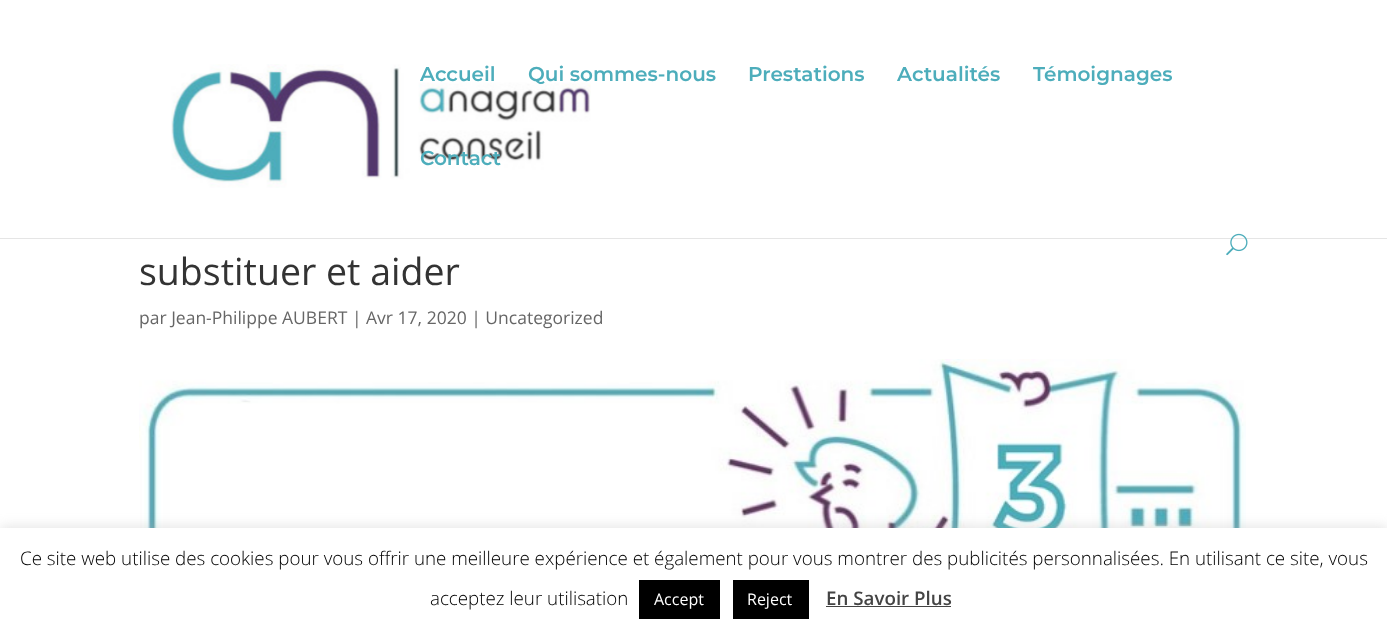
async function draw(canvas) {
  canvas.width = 1387
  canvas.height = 640
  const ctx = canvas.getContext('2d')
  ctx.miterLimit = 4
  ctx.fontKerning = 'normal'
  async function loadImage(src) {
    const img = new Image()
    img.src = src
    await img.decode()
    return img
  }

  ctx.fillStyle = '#fff'
  ctx.fillRect(0, 0, 1387, 640)
  ctx.fillStyle = '#0000001a'
  ctx.beginPath()
  ctx.moveTo(0, 238)
  ctx.lineTo(0, 239)
  ctx.lineTo(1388, 239)
  ctx.lineTo(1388, 1)
  ctx.lineTo(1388, 238)
  ctx.closePath()
  ctx.fill()
  ctx.drawImage(await loadImage('image0.png'), 171, 64, 420, 124)
  ctx.font = '600 20px Montserrat'
  ctx.fillStyle = '#4dadbb'
  ctx.fillText('Accueil', 420, 81)
  ctx.fillText('Qui sommes-nous', 528, 81)
  ctx.fillText('Prestations', 748, 81)
  ctx.fillText('Actualités', 897, 81)
  ctx.fillText('Témoignages', 1033, 81)
  ctx.fillText('Contact', 420, 165)
  ctx.drawImage(await loadImage('image1.png'), 1226, 233, 22, 23)
  ctx.font = '37.5px Open Sans'
  ctx.fillStyle = '#333'
  ctx.fillText('substituer et aider', 139, 285)
  ctx.font = '17.5px Open Sans'
  ctx.fillStyle = '#666'
  ctx.fillText('par Jean-Philippe AUBERT | Avr 17, 2020 | Uncategorized', 139, 324)
  ctx.drawImage(await loadImage('image2.png'), 139, 359, 1107, 169)
  ctx.fillStyle = '#acabab4d'
  ctx.filter = 'blur(6px)'
  ctx.beginPath()
  ctx.rect(0, 526, 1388, 113)
  ctx.fill()
  ctx.filter = 'none'
  ctx.fillStyle = '#fff'
  ctx.fillRect(0, 528, 1387, 112)
  ctx.font = '300 18.75px Open Sans'
  ctx.fillStyle = '#000'
  ctx.fillText('Ce site web utilise des cookies pour vous offrir une meilleure expérience et également pour vous montrer des publicités personnalisées. En utilisant ce site, vous', 20, 565)
  ctx.fillText('acceptez leur utilisation', 430, 605)
  ctx.fillRect(639, 580, 81, 39)
  ctx.font = '16px Open Sans'
  ctx.fillStyle = '#fff'
  ctx.fillText('Accept', 654, 605)
  ctx.fillStyle = '#000'
  ctx.fillRect(733, 580, 76, 39)
  ctx.fillStyle = '#fff'
  ctx.fillText('Reject', 747, 605)
  ctx.font = '600 18.75px Open Sans'
  ctx.fillStyle = '#444'
  ctx.fillText('En Savoir Plus', 826, 605)
  ctx.fillRect(826, 606, 125, 1)
}

draw(document.querySelector('canvas'))
